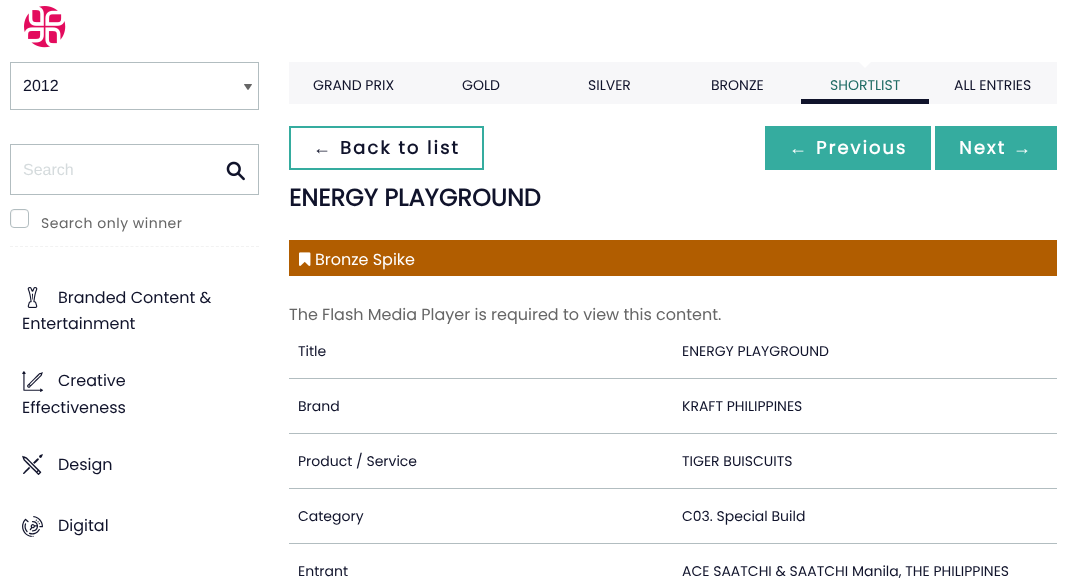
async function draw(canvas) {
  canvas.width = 1077
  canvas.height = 586
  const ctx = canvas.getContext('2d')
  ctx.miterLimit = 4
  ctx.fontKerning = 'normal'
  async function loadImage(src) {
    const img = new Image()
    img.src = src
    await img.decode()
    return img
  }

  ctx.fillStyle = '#fff'
  ctx.fillRect(0, 0, 1077, 586)
  ctx.drawImage(await loadImage('image0.png'), 24, 6, 42, 42)
  ctx.strokeStyle = '#b2bdc0'
  ctx.strokeRect(10.5, 62.5, 248, 47)
  ctx.font = '16px Liberation Sans'
  ctx.fillStyle = '#10132b'
  ctx.fillText('2012', 23, 91)
  ctx.font = '8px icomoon'
  ctx.fillStyle = '#666'
  ctx.save()
  ctx.translate(244, 83)
  ctx.rotate(90 * Math.PI / 180)
  ctx.fillText('9', 0, 0)
  ctx.restore()
  ctx.beginPath()
  ctx.moveTo(10, 246.5)
  ctx.lineTo(259, 246.5)
  ctx.strokeStyle = '#f2f2f2'
  ctx.setLineDash([3, 2.02])
  ctx.stroke()
  ctx.strokeStyle = '#b2bdc0'
  ctx.setLineDash([])
  ctx.strokeRect(10.5, 144.5, 248, 50)
  ctx.font = '16px Liberation Sans'
  ctx.fillStyle = '#d5dbdd'
  ctx.fillText('Search', 23, 175)
  ctx.drawImage(await loadImage('image1.png'), 226, 161, 19, 20)
  ctx.fillStyle = '#f7f7f7'
  ctx.beginPath()
  ctx.moveTo(15, 211)
  ctx.lineTo(27.5, 211)
  ctx.bezierCurveTo(26, 209.5, 23, 210, 21.5, 210)
  ctx.bezierCurveTo(10, 210, 11, 209, 11, 220.5)
  ctx.bezierCurveTo(11, 222.5, 10.5, 225, 12.5, 226.5)
  ctx.bezierCurveTo(11.5, 225, 12, 214, 12.5, 212.5)
  ctx.bezierCurveTo(13, 211.5, 14, 211, 15, 211)
  ctx.closePath()
  ctx.fill()
  ctx.beginPath()
  ctx.roundRect(10.5, 209.5, 18, 18, 3.5)
  ctx.stroke()
  ctx.letterSpacing = '0.5px'
  ctx.font = '14px Poppins'
  ctx.fillStyle = '#666'
  ctx.fillText('Search only winner', 41, 228)
  ctx.drawImage(await loadImage('image2.png'), 27, 287, 11, 21)
  ctx.letterSpacing = '0px'
  ctx.font = '16px Poppins'
  ctx.fillStyle = '#10132b'
  ctx.fillText('Branded Content &', 58, 303)
  ctx.fillText('Entertainment', 22, 329)
  ctx.font = '21px icomoon'
  ctx.fillText('\'', 22, 392)
  ctx.font = '16px Poppins'
  ctx.fillText('Creative', 58, 386)
  ctx.fillText('Effectiveness', 22, 413)
  ctx.font = '21px icomoon'
  ctx.fillText(')', 22, 475)
  ctx.font = '16px Poppins'
  ctx.fillText('Design', 58, 470)
  ctx.font = '21px icomoon'
  ctx.fillText('(', 22, 537)
  ctx.font = '16px Poppins'
  ctx.fillText('Digital', 58, 531)
  ctx.fillStyle = '#f7f7f9'
  ctx.fillRect(289, 62, 768, 42)
  ctx.font = '14px Poppins'
  ctx.fillStyle = '#10132b'
  ctx.fillText('GRAND PRIX', 313, 90)
  ctx.fillText('GOLD', 462, 90)
  ctx.fillText('SILVER', 588, 90)
  ctx.fillText('BRONZE', 711, 90)
  ctx.fillRect(801, 99, 128, 5)
  ctx.fillStyle = '#fff'
  ctx.beginPath()
  ctx.moveTo(859, 62)
  ctx.lineTo(871, 62)
  ctx.lineTo(865, 68)
  ctx.closePath()
  ctx.fill()
  ctx.fillStyle = '#206c65'
  ctx.fillText('SHORTLIST', 830, 90)
  ctx.fillStyle = '#10132b'
  ctx.fillText('ALL ENTRIES', 954, 90)
  ctx.strokeStyle = '#35ac9f'
  ctx.lineWidth = 2
  ctx.strokeRect(290, 127, 193, 42)
  ctx.letterSpacing = '2px'
  ctx.font = 'bold 18px Liberation Sans'
  ctx.fillText('←', 313, 154)
  ctx.font = 'bold 18px Poppins'
  ctx.fillText('Back to list', 340, 154)
  ctx.fillStyle = '#35ac9f'
  ctx.fillRect(765, 126, 166, 44)
  ctx.font = 'bold 18px Liberation Sans'
  ctx.fillStyle = '#fff'
  ctx.fillText('←', 789, 154)
  ctx.font = 'bold 18px Poppins'
  ctx.fillText('Previous', 816, 154)
  ctx.fillStyle = '#35ac9f'
  ctx.fillRect(935, 126, 122, 44)
  ctx.fillStyle = '#fff'
  ctx.fillText('Next', 959, 154)
  ctx.font = 'bold 18px Liberation Sans'
  ctx.fillText('→', 1013, 154)
  ctx.letterSpacing = '0px'
  ctx.font = 'bold 24px Poppins'
  ctx.fillStyle = '#10132b'
  ctx.fillText('ENERGY PLAYGROUND', 289, 206)
  ctx.fillStyle = '#b15d00'
  ctx.fillRect(289, 240, 768, 36)
  ctx.drawImage(await loadImage('image3.png'), 299, 252, 12, 14)
  ctx.font = '16px Poppins'
  ctx.fillStyle = '#fff'
  ctx.fillText('Bronze Spike', 315, 265)
  ctx.fillStyle = '#666'
  ctx.fillText('The Flash Media Player is required to view this content.', 289, 320)
  ctx.fillStyle = '#fff'
  ctx.fillRect(447, 324, 70, 1)
  ctx.font = '14px Poppins'
  ctx.fillStyle = '#10132b'
  ctx.fillText('Title', 298, 356)
  ctx.fillText('ENERGY PLAYGROUND', 682, 356)
  ctx.fillStyle = '#b2bdc0'
  ctx.fillRect(289, 378, 768, 1)
  ctx.fillStyle = '#10132b'
  ctx.fillText('Brand', 298, 411)
  ctx.fillText('KRAFT PHILIPPINES', 682, 411)
  ctx.fillStyle = '#b2bdc0'
  ctx.fillRect(289, 433, 768, 1)
  ctx.fillStyle = '#10132b'
  ctx.fillText('Product / Service', 298, 466)
  ctx.fillText('TIGER BUISCUITS', 682, 466)
  ctx.fillStyle = '#b2bdc0'
  ctx.fillRect(289, 488, 768, 1)
  ctx.fillStyle = '#10132b'
  ctx.fillText('Category', 298, 521)
  ctx.fillText('C03. Special Build', 682, 521)
  ctx.fillStyle = '#b2bdc0'
  ctx.fillRect(289, 543, 768, 1)
  ctx.fillStyle = '#10132b'
  ctx.fillText('Entrant', 298, 576)
  ctx.fillText('ACE SAATCHI & SAATCHI Manila, THE PHILIPPINES', 682, 576)
}

draw(document.querySelector('canvas'))
